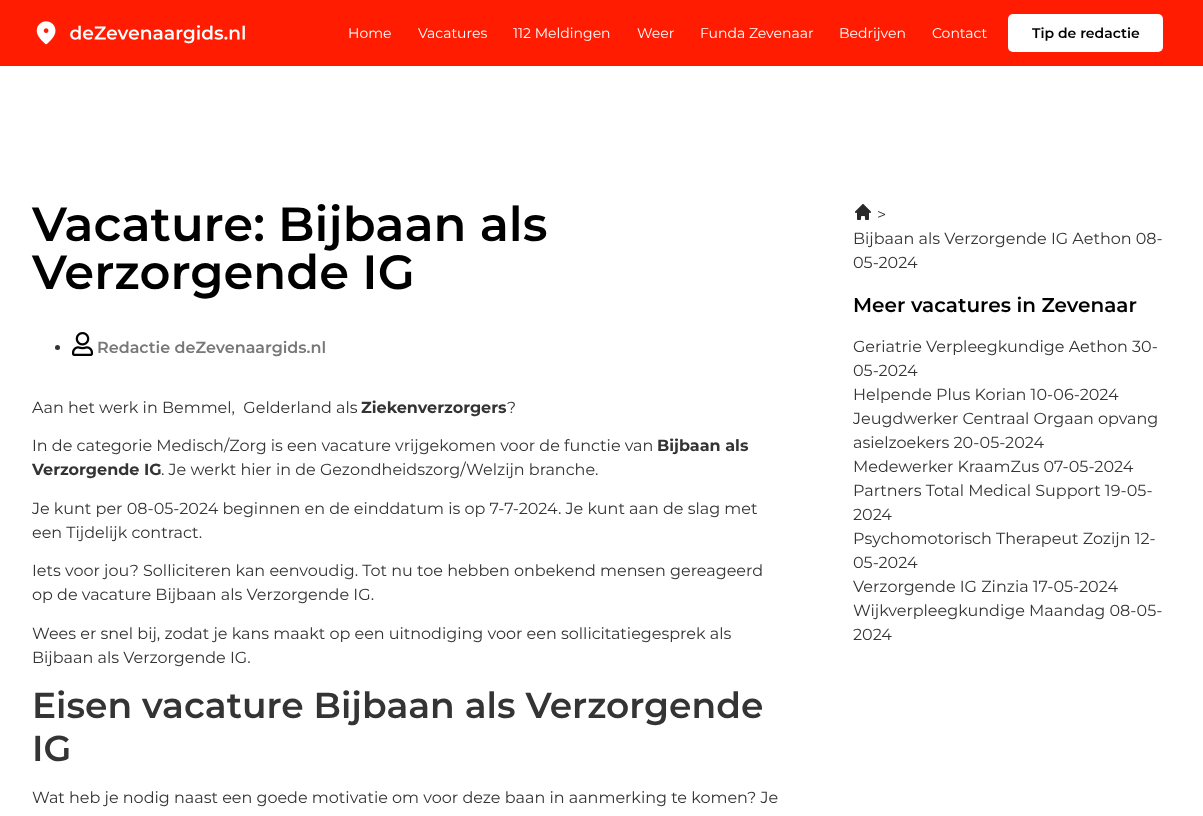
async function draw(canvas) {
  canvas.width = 1203
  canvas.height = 816
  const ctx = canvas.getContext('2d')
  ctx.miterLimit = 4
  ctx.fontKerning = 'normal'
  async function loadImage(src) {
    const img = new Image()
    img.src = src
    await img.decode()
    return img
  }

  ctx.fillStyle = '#fff'
  ctx.fillRect(0, 0, 1203, 816)
  ctx.fillStyle = '#ff1c00'
  ctx.fillRect(0, 0, 1203, 66)
  ctx.drawImage(await loadImage('image0.png'), 36, 21, 209, 24)
  ctx.font = '14px Montserrat'
  ctx.fillStyle = '#fff'
  ctx.fillText('Home', 348, 38)
  ctx.fillText('Vacatures', 418, 38)
  ctx.fillText('112 Meldingen', 513, 38)
  ctx.fillText('Weer', 637, 38)
  ctx.fillText('Funda Zevenaar', 700, 38)
  ctx.fillText('Bedrijven', 839, 38)
  ctx.fillText('Contact', 932, 38)
  ctx.beginPath()
  ctx.roundRect(1008, 14, 155, 38, 5)
  ctx.fill()
  ctx.font = '600 14px Montserrat'
  ctx.fillStyle = '#000'
  ctx.fillText('Tip de redactie', 1032, 38)
  ctx.font = '600 48px Montserrat'
  ctx.fillText('Vacature: Bijbaan als', 32, 241)
  ctx.fillText('Verzorgende IG', 32, 289)
  ctx.fillStyle = '#333'
  ctx.beginPath()
  ctx.arc(57.5, 347.5, 2.5, 0, 2 * Math.PI)
  ctx.fill()
  ctx.drawImage(await loadImage('image1.png'), 72, 332, 21, 24)
  ctx.font = '600 16px Montserrat'
  ctx.fillStyle = '#787878'
  ctx.fillText('Redactie deZevenaargids.nl', 97, 353)
  ctx.font = '16px Montserrat'
  ctx.fillStyle = '#343434'
  ctx.fillText('Aan het werk in Bemmel,  Gelderland als', 32, 413)
  ctx.font = 'bold 16px Montserrat'
  ctx.fillText('Ziekenverzorgers', 361, 413)
  ctx.font = '16px Montserrat'
  ctx.fillText('?', 507, 413)
  ctx.fillText('In de categorie Medisch/Zorg is een vacature vrijgekomen voor de functie van', 32, 451)
  ctx.font = 'bold 16px Montserrat'
  ctx.fillText('Bijbaan als', 657, 451)
  ctx.fillText('Verzorgende IG', 32, 475)
  ctx.font = '16px Montserrat'
  ctx.fillText('. Je werkt hier in de Gezondheidszorg/Welzijn branche.', 161, 475)
  ctx.fillText('Je kunt per 08-05-2024 beginnen en de einddatum is op 7-7-2024. Je kunt aan de slag met', 32, 514)
  ctx.fillText('een Tijdelijk contract.', 32, 538)
  ctx.fillText('Iets voor jou? Solliciteren kan eenvoudig. Tot nu toe hebben onbekend mensen gereageerd', 32, 576)
  ctx.fillText('op de vacature Bijbaan als Verzorgende IG.', 32, 600)
  ctx.fillText('Wees er snel bij, zodat je kans maakt op een uitnodiging voor een sollicitatiegesprek als', 32, 639)
  ctx.fillText('Bijbaan als Verzorgende IG.', 32, 663)
  ctx.font = '600 36px Montserrat'
  ctx.fillText('Eisen vacature Bijbaan als Verzorgende', 32, 718)
  ctx.fillText('IG', 32, 761)
  ctx.font = '16px Montserrat'
  ctx.fillText('Wat heb je nodig naast een goede motivatie om voor deze baan in aanmerking te komen? Je', 32, 803)
  ctx.drawImage(await loadImage('image2.png'), 855, 204, 16, 16)
  ctx.fillText('>', 877, 220)
  ctx.fillText('Bijbaan als Verzorgende IG Aethon 08-', 853, 244)
  ctx.fillText('05-2024', 853, 268)
  ctx.font = '600 20px Montserrat'
  ctx.fillStyle = '#000'
  ctx.fillText('Meer vacatures in Zevenaar', 853, 312)
  ctx.font = '16px Montserrat'
  ctx.fillStyle = '#343434'
  ctx.fillText('Geriatrie Verpleegkundige Aethon 30-', 853, 352)
  ctx.fillText('05-2024', 853, 376)
  ctx.fillText('Helpende Plus Korian 10-06-2024', 853, 400)
  ctx.fillText('Jeugdwerker Centraal Orgaan opvang', 853, 424)
  ctx.fillText('asielzoekers 20-05-2024', 853, 448)
  ctx.fillText('Medewerker KraamZus 07-05-2024', 853, 472)
  ctx.fillText('Partners Total Medical Support 19-05-', 853, 496)
  ctx.fillText('2024', 853, 520)
  ctx.fillText('Psychomotorisch Therapeut Zozijn 12-', 853, 544)
  ctx.fillText('05-2024', 853, 568)
  ctx.fillText('Verzorgende IG Zinzia 17-05-2024', 853, 592)
  ctx.fillText('Wijkverpleegkundige Maandag 08-05-', 853, 616)
  ctx.fillText('2024', 853, 640)
}

draw(document.querySelector('canvas'))
